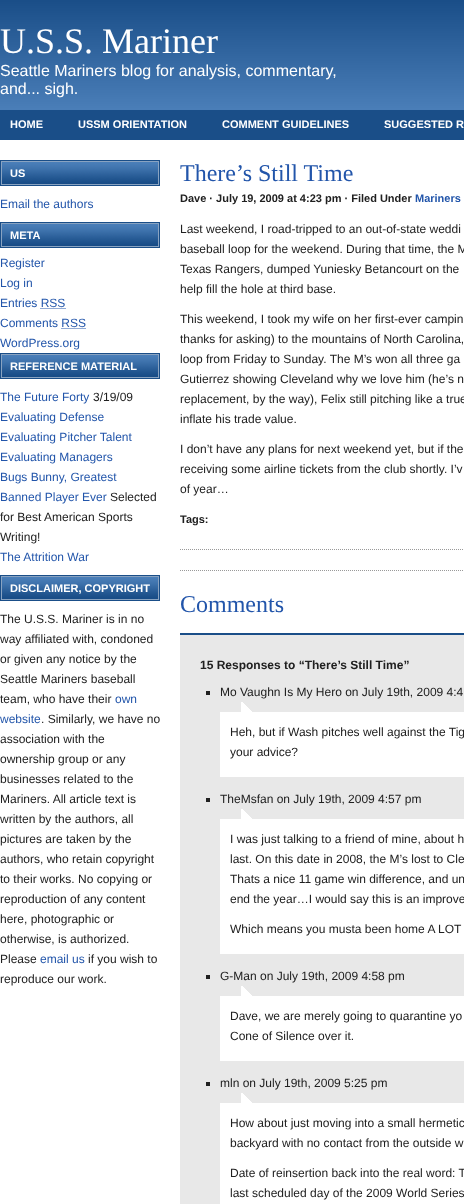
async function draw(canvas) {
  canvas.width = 464
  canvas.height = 1204
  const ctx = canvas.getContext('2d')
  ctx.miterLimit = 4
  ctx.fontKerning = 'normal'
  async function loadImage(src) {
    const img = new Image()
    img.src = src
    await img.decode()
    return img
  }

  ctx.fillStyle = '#fff'
  ctx.fillRect(0, 0, 464, 1204)
  ctx.drawImage(await loadImage('image0.png'), 0, 0, 464, 140)
  ctx.font = '36px Liberation Serif'
  ctx.fillText('U.S.S. Mariner', 0, 53)
  ctx.font = '16px Liberation Sans'
  ctx.fillText('Seattle Mariners blog for analysis, commentary,', 0, 76)
  ctx.fillText('and... sigh.', 0, 94)
  ctx.font = 'bold 11px Liberation Sans'
  ctx.fillText('HOME', 10, 128)
  ctx.fillText('USSM ORIENTATION', 78, 128)
  ctx.fillText('COMMENT GUIDELINES', 222, 128)
  ctx.fillText('SUGGESTED R', 384, 128)
  ctx.drawImage(await loadImage('image1.png'), 0, 160, 160, 26)
  ctx.fillText('US', 10, 177)
  ctx.font = '12px Liberation Sans'
  ctx.fillStyle = '#25a'
  ctx.fillText('Email the authors', 0, 208)
  ctx.drawImage(await loadImage('image1.png'), 0, 222, 160, 26)
  ctx.font = 'bold 11px Liberation Sans'
  ctx.fillStyle = '#fff'
  ctx.fillText('META', 10, 239)
  ctx.font = '12px Liberation Sans'
  ctx.fillStyle = '#25a'
  ctx.fillText('Register', 0, 267)
  ctx.fillText('Log in', 0, 287)
  ctx.fillText('Entries RSS', 0, 307)
  ctx.beginPath()
  ctx.moveTo(40.5, 308.5)
  ctx.lineTo(65.5, 308.5)
  ctx.strokeStyle = '#25a'
  ctx.setLineDash([1, 1])
  ctx.stroke()
  ctx.fillText('Comments RSS', 0, 327)
  ctx.beginPath()
  ctx.moveTo(61.5, 328.5)
  ctx.lineTo(86, 328.5)
  ctx.stroke()
  ctx.fillText('WordPress.org', 0, 347)
  ctx.drawImage(await loadImage('image1.png'), 0, 353, 160, 26)
  ctx.font = 'bold 11px Liberation Sans'
  ctx.fillStyle = '#fff'
  ctx.fillText('REFERENCE MATERIAL', 10, 370)
  ctx.font = '12px Liberation Sans'
  ctx.fillStyle = '#25a'
  ctx.fillText('The Future Forty', 0, 401)
  ctx.fillStyle = '#202020'
  ctx.fillText('3/19/09', 93, 401)
  ctx.fillStyle = '#25a'
  ctx.fillText('Evaluating Defense', 0, 421)
  ctx.fillText('Evaluating Pitcher Talent', 0, 441)
  ctx.fillText('Evaluating Managers', 0, 461)
  ctx.fillText('Bugs Bunny, Greatest', 0, 481)
  ctx.fillText('Banned Player Ever', 0, 501)
  ctx.fillStyle = '#202020'
  ctx.fillText('Selected', 110, 501)
  ctx.fillText('for Best American Sports', 0, 521)
  ctx.fillText('Writing!', 0, 541)
  ctx.fillStyle = '#25a'
  ctx.fillText('The Attrition War', 0, 561)
  ctx.drawImage(await loadImage('image1.png'), 0, 575, 160, 26)
  ctx.font = 'bold 11px Liberation Sans'
  ctx.fillStyle = '#fff'
  ctx.fillText('DISCLAIMER, COPYRIGHT', 10, 592)
  ctx.font = '12px Liberation Sans'
  ctx.fillStyle = '#202020'
  ctx.fillText('The U.S.S. Mariner is in no', 0, 623)
  ctx.fillText('way affiliated with, condoned', 0, 643)
  ctx.fillText('or given any notice by the', 0, 663)
  ctx.fillText('Seattle Mariners baseball', 0, 683)
  ctx.fillText('team, who have their', 0, 703)
  ctx.fillStyle = '#25a'
  ctx.fillText('own', 115, 703)
  ctx.fillText('website', 0, 723)
  ctx.fillStyle = '#202020'
  ctx.fillText('. Similarly, we have no', 41, 723)
  ctx.fillText('association with the', 0, 743)
  ctx.fillText('ownership group or any', 0, 763)
  ctx.fillText('businesses related to the', 0, 783)
  ctx.fillText('Mariners. All article text is', 0, 803)
  ctx.fillText('written by the authors, all', 0, 823)
  ctx.fillText('pictures are taken by the', 0, 843)
  ctx.fillText('authors, who retain copyright', 0, 863)
  ctx.fillText('to their works. No copying or', 0, 883)
  ctx.fillText('reproduction of any content', 0, 903)
  ctx.fillText('here, photographic or', 0, 923)
  ctx.fillText('otherwise, is authorized.', 0, 943)
  ctx.fillText('Please', 0, 963)
  ctx.fillStyle = '#25a'
  ctx.fillText('email us', 40, 963)
  ctx.fillStyle = '#202020'
  ctx.fillText('if you wish to', 88, 963)
  ctx.fillText('reproduce our work.', 0, 983)
  ctx.font = '24px Liberation Serif'
  ctx.fillStyle = '#25a'
  ctx.fillText('There’s Still Time', 180, 181)
  ctx.font = 'bold 11px Liberation Sans'
  ctx.fillStyle = '#202020'
  ctx.fillText('Dave · July 19, 2009 at 4:23 pm · Filed Under', 180, 202)
  ctx.fillStyle = '#25a'
  ctx.fillText('Mariners', 415, 202)
  ctx.font = '12px Liberation Sans'
  ctx.fillStyle = '#202020'
  ctx.fillText('Last weekend, I road-tripped to an out-of-state weddi', 180, 233)
  ctx.fillText('baseball loop for the weekend. During that time, the M', 180, 253)
  ctx.fillText('Texas Rangers, dumped Yuniesky Betancourt on the', 180, 273)
  ctx.fillText('help fill the hole at third base.', 180, 293)
  ctx.fillText('This weekend, I took my wife on her first-ever campin', 180, 323)
  ctx.fillText('thanks for asking) to the mountains of North Carolina,', 180, 343)
  ctx.fillText('loop from Friday to Sunday. The M’s won all three ga', 180, 363)
  ctx.fillText('Gutierrez showing Cleveland why we love him (he’s n', 180, 383)
  ctx.fillText('replacement, by the way), Felix still pitching like a true', 180, 403)
  ctx.fillText('inflate his trade value.', 180, 423)
  ctx.fillText('I don’t have any plans for next weekend yet, but if the', 180, 453)
  ctx.fillText('receiving some airline tickets from the club shortly. I’v', 180, 473)
  ctx.fillText('of year…', 180, 493)
  ctx.beginPath()
  ctx.moveTo(180, 549.5)
  ctx.lineTo(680, 549.5)
  ctx.strokeStyle = '#999'
  ctx.stroke()
  ctx.font = 'bold 11px Liberation Sans'
  ctx.fillText('Tags:', 180, 523)
  ctx.beginPath()
  ctx.moveTo(180, 570.5)
  ctx.lineTo(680, 570.5)
  ctx.stroke()
  ctx.font = '24px Liberation Serif'
  ctx.fillStyle = '#25a'
  ctx.fillText('Comments', 180, 612)
  ctx.fillStyle = '#e8e8e8'
  ctx.fillRect(180, 635, 284, 569)
  ctx.fillStyle = '#1a4e88'
  ctx.fillRect(180, 633, 284, 2)
  ctx.font = 'bold 12px Liberation Sans'
  ctx.fillStyle = '#202020'
  ctx.fillText('15 Responses to “There’s Still Time”', 200, 669)
  ctx.fillRect(206, 691, 4, 4)
  ctx.font = '12px Liberation Sans'
  ctx.fillText('Mo Vaughn Is My Hero on July 19th, 2009 4:4', 220, 696)
  ctx.fillStyle = '#fff'
  ctx.fillRect(220, 712, 244, 65)
  ctx.drawImage(await loadImage('image2.png'), 220, 702, 244, 10)
  ctx.fillStyle = '#202020'
  ctx.fillText('Heh, but if Wash pitches well against the Tig', 230, 736)
  ctx.fillText('your advice?', 230, 756)
  ctx.fillRect(206, 798, 4, 4)
  ctx.fillText('TheMsfan on July 19th, 2009 4:57 pm', 220, 803)
  ctx.fillStyle = '#fff'
  ctx.fillRect(220, 819, 244, 135)
  ctx.drawImage(await loadImage('image2.png'), 220, 809, 244, 10)
  ctx.fillStyle = '#202020'
  ctx.fillText('I was just talking to a friend of mine, about h', 230, 843)
  ctx.fillText('last. On this date in 2008, the M’s lost to Cle', 230, 863)
  ctx.fillText('Thats a nice 11 game win difference, and un', 230, 883)
  ctx.fillText('end the year…I would say this is an improve', 230, 903)
  ctx.fillText('Which means you musta been home A LOT', 230, 933)
  ctx.fillRect(206, 975, 4, 4)
  ctx.fillText('G-Man on July 19th, 2009 4:58 pm', 220, 980)
  ctx.fillStyle = '#fff'
  ctx.fillRect(220, 996, 244, 65)
  ctx.drawImage(await loadImage('image2.png'), 220, 986, 244, 10)
  ctx.fillStyle = '#202020'
  ctx.fillText('Dave, we are merely going to quarantine yo', 230, 1020)
  ctx.fillText('Cone of Silence over it.', 230, 1040)
  ctx.fillRect(206, 1082, 4, 4)
  ctx.fillText('mln on July 19th, 2009 5:25 pm', 220, 1087)
  ctx.fillStyle = '#fff'
  ctx.fillRect(220, 1103, 244, 101)
  ctx.drawImage(await loadImage('image2.png'), 220, 1093, 244, 10)
  ctx.fillStyle = '#202020'
  ctx.fillText('How about just moving into a small hermetic', 230, 1127)
  ctx.fillText('backyard with no contact from the outside w', 230, 1147)
  ctx.fillText('Date of reinsertion back into the real word: T', 230, 1177)
  ctx.fillText('last scheduled day of the 2009 World Series', 230, 1197)
}

draw(document.querySelector('canvas'))
